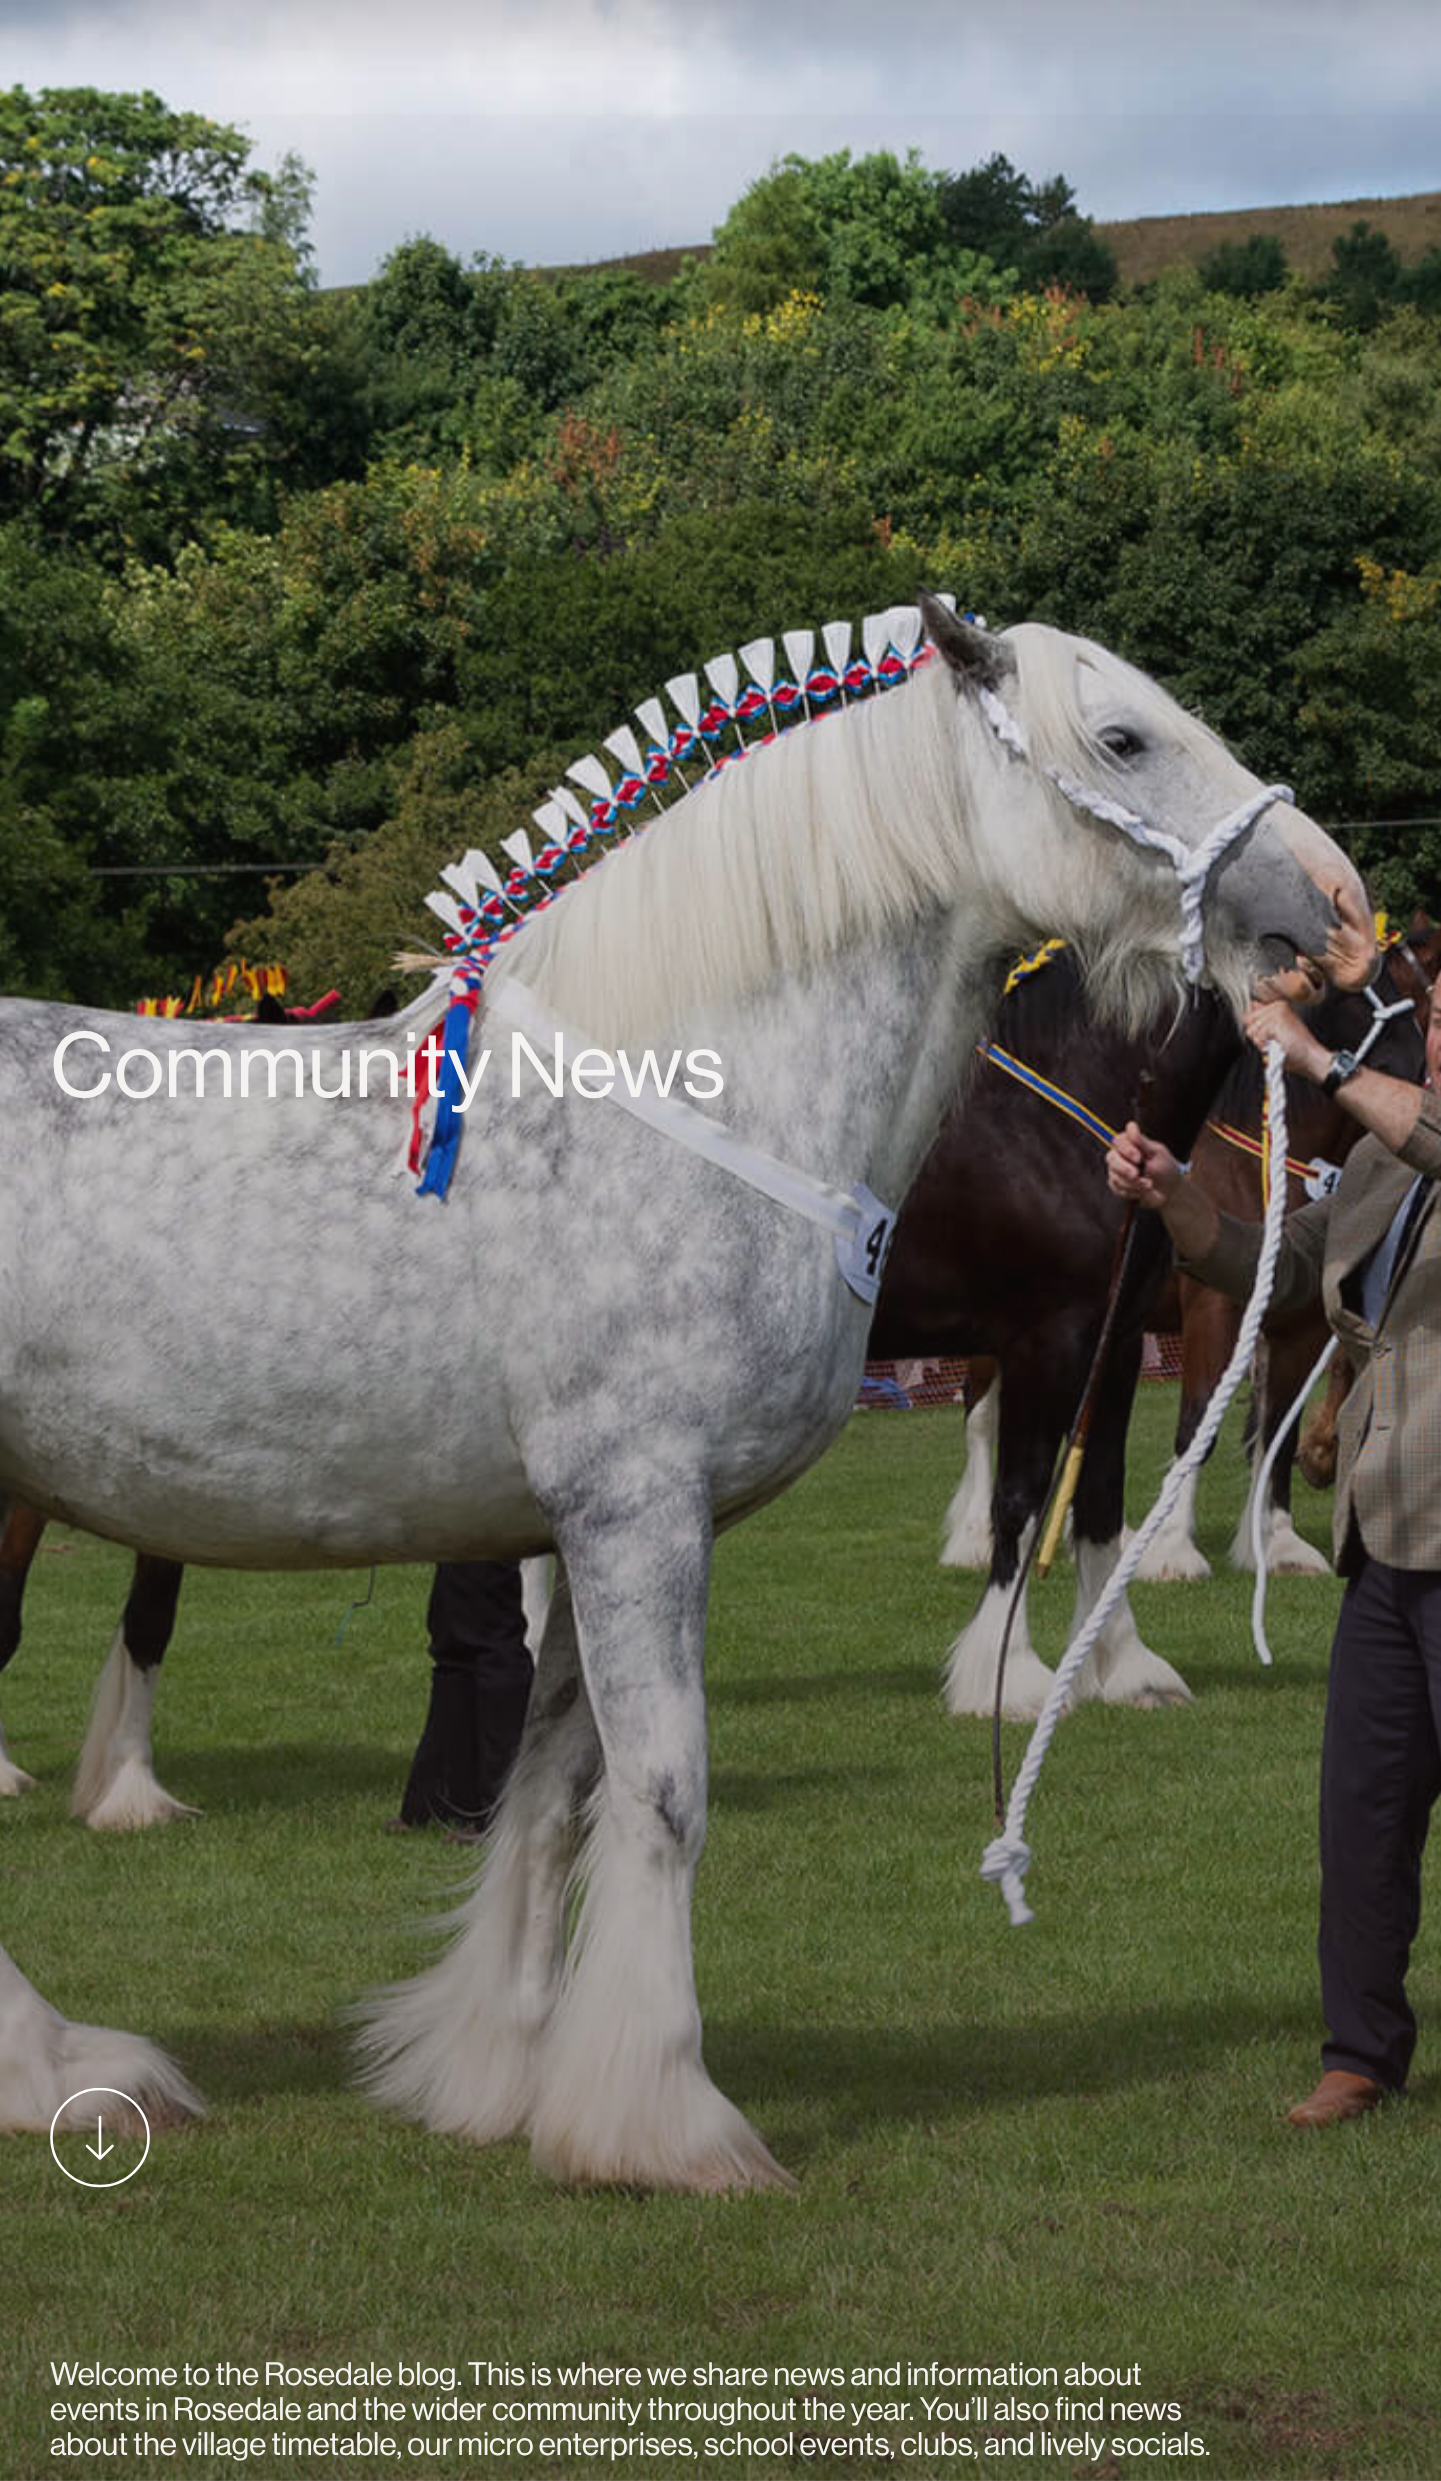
async function draw(canvas) {
  canvas.width = 1441
  canvas.height = 2481
  const ctx = canvas.getContext('2d')
  ctx.miterLimit = 4
  ctx.fontKerning = 'normal'
  async function loadImage(src) {
    const img = new Image()
    img.src = src
    await img.decode()
    return img
  }
  let gradient

  ctx.fillStyle = '#fff'
  ctx.fillRect(0, 0, 1441, 2481)
  ctx.drawImage(await loadImage('image0.png'), 0, 0, 1441, 2481)
  gradient = ctx.createLinearGradient(721, 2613, 721, 1.2)
  gradient.addColorStop(0, '#2c1e1e80')
  gradient.addColorStop(1, '#2c1e1e00')
  ctx.fillStyle = gradient
  ctx.fillRect(0, 114, 1441, 2367)
  ctx.font = '500 90.5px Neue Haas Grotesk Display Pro'
  ctx.fillStyle = '#f4f3f1'
  ctx.fillText('Community News', 50, 1097)
  ctx.save()
  ctx.beginPath()
  ctx.rect(50, 2088, 100, 100)
  ctx.clip()
  ctx.beginPath()
  ctx.arc(100, 2137.5, 48.5, 0, 2 * Math.PI)
  ctx.strokeStyle = '#fff'
  ctx.lineWidth = 2.6
  ctx.stroke()
  ctx.restore()
  ctx.beginPath()
  ctx.moveTo(112.5, 2146)
  ctx.lineTo(100, 2158.5)
  ctx.lineTo(87, 2146)
  ctx.moveTo(100, 2117)
  ctx.lineTo(100, 2157)
  ctx.strokeStyle = '#fff'
  ctx.lineWidth = 2.6
  ctx.lineCap = 'round'
  ctx.lineJoin = 'round'
  ctx.stroke()
  ctx.font = '500 32px Neue Haas Grotesk Display Pro'
  ctx.fillText('Welcome to the Rosedale blog. This is where we share news and information about', 50, 2385)
  ctx.fillText('events in Rosedale and the wider community throughout the year. You’ll also find news', 50, 2420)
  ctx.fillText('about the village timetable, our micro enterprises, school events, clubs, and lively socials.', 50, 2455)
}

draw(document.querySelector('canvas'))
